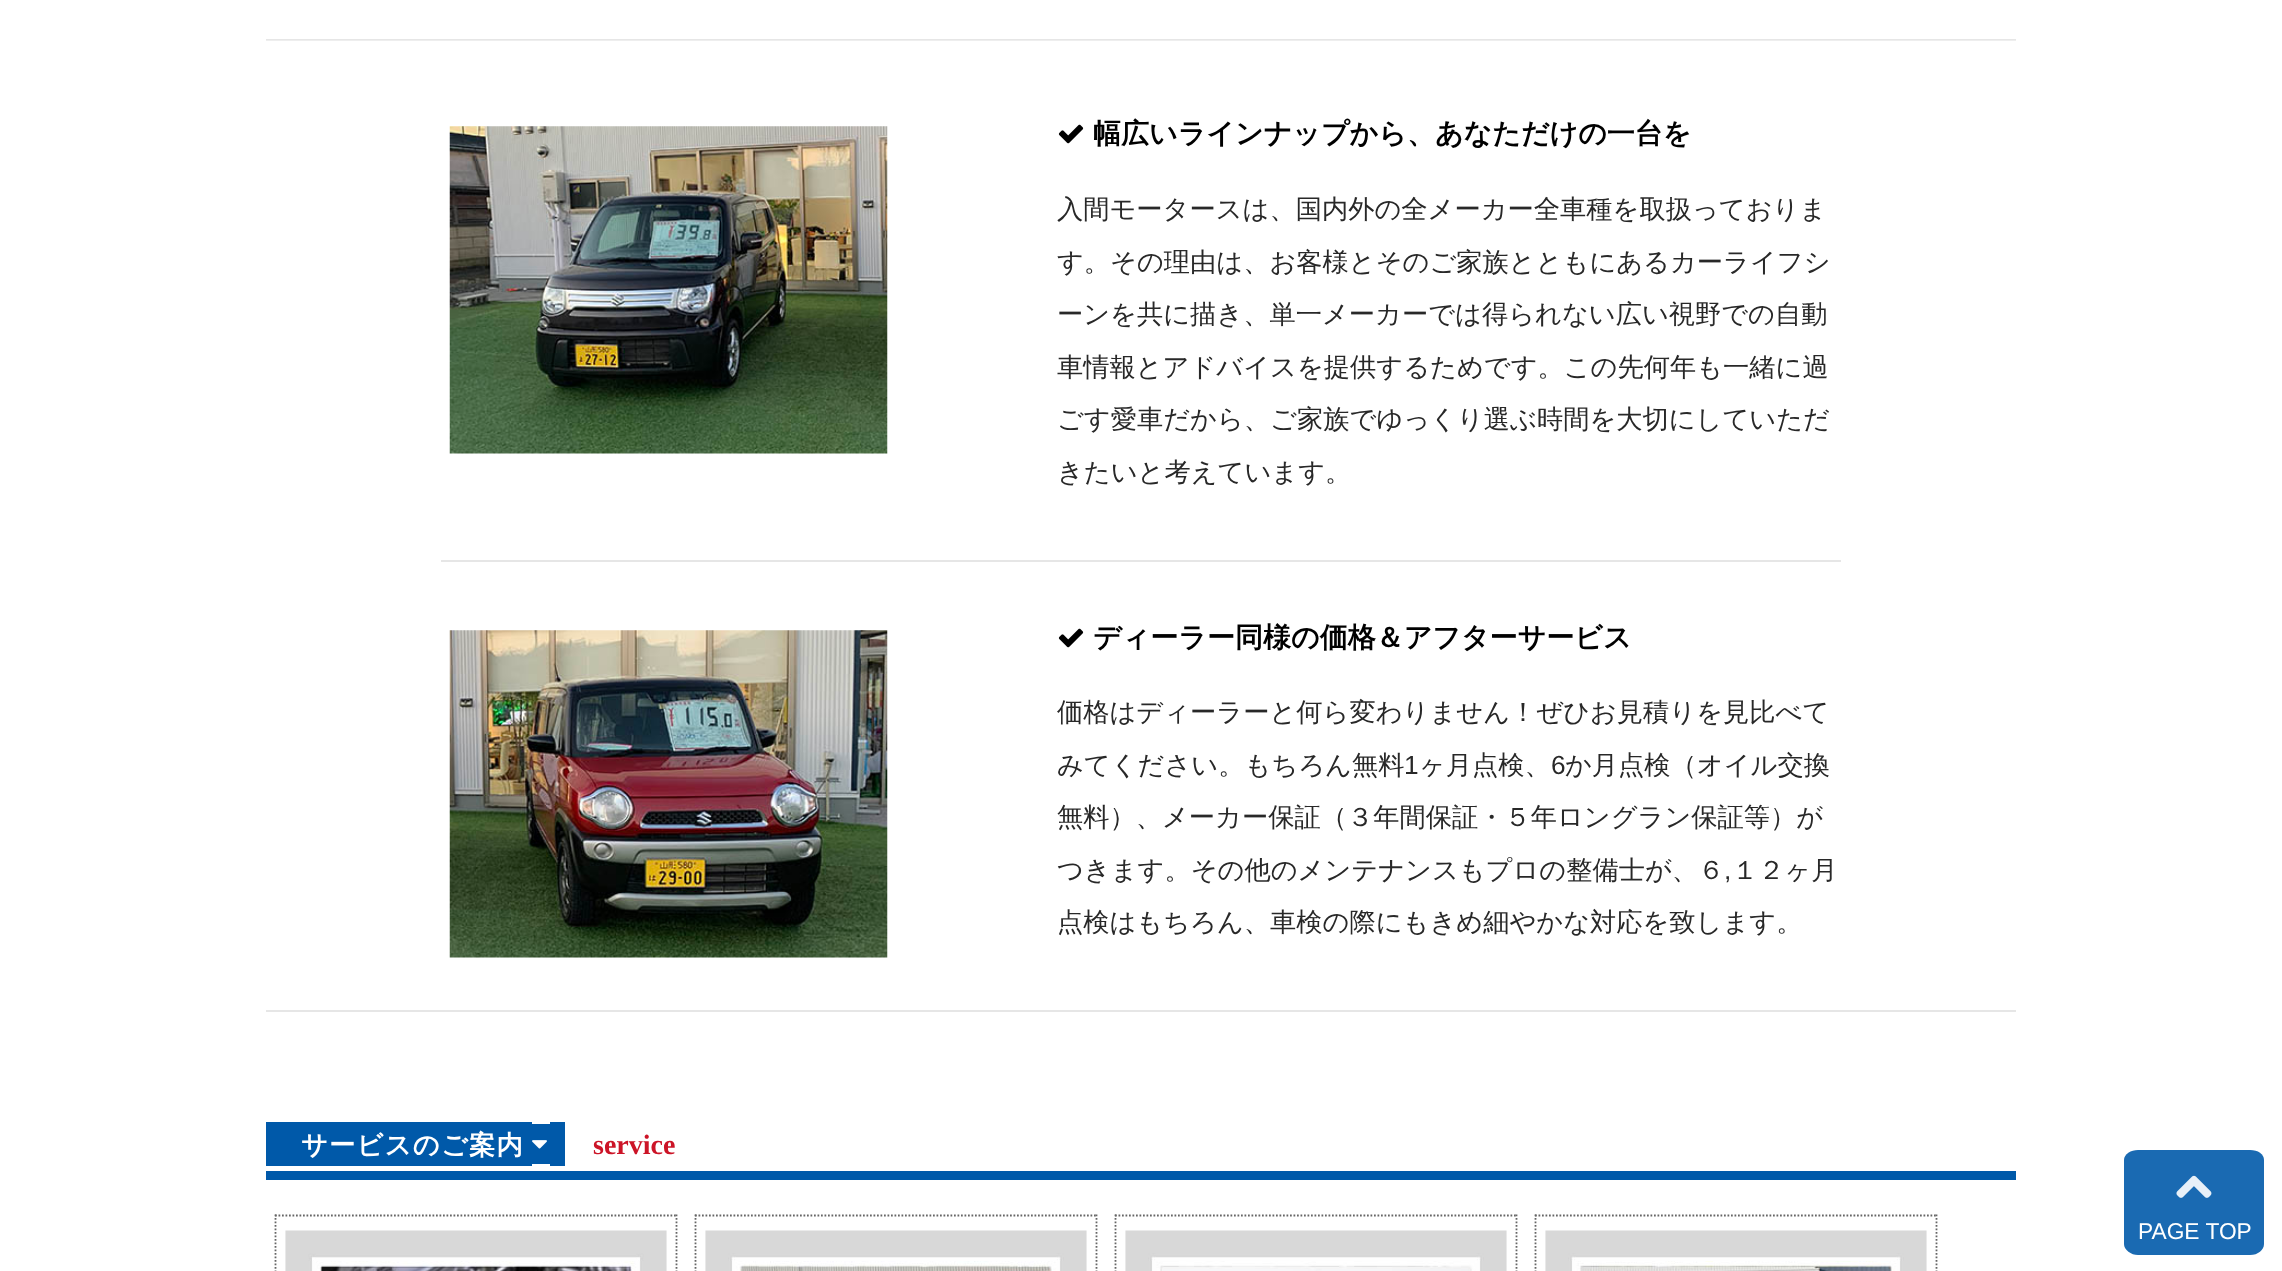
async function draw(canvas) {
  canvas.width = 2282
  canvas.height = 1271
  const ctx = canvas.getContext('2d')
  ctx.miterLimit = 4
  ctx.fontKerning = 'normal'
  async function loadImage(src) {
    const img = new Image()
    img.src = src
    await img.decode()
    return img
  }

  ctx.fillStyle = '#fff'
  ctx.fillRect(0, 0, 2282, 1271)
  ctx.fillStyle = '#e6e6e6'
  ctx.fillRect(266, 39, 1750, 1)
  ctx.fillStyle = '#eee'
  ctx.fillRect(266, 40, 1750, 1)
  ctx.drawImage(await loadImage('image0.png'), 449, 126, 439, 328)
  ctx.drawImage(await loadImage('image1.png'), 1058, 124, 26, 20)
  ctx.font = 'bold 28px WenQuanYi Zen Hei'
  ctx.fillStyle = '#000'
  ctx.fillText('幅広いラインナップから、あなただけの一台を', 1093, 143)
  ctx.font = '500 26.25px WenQuanYi Zen Hei'
  ctx.fillStyle = '#282828'
  ctx.fillText('入間モータースは、国内外の全メーカー全車種を取扱っておりま', 1057, 218)
  ctx.fillText('す。その理由は、お客様とそのご家族とともにあるカーライフシ', 1057, 271)
  ctx.fillText('ーンを共に描き、単一メーカーでは得られない広い視野での自動', 1057, 323)
  ctx.fillText('車情報とアドバイスを提供するためです。この先何年も一緒に過', 1057, 376)
  ctx.fillText('ごす愛車だから、ご家族でゆっくり選ぶ時間を大切にしていただ', 1057, 428)
  ctx.fillText('きたいと考えています。', 1057, 481)
  ctx.fillStyle = '#e6e6e6'
  ctx.fillRect(441, 560, 1400, 2)
  ctx.drawImage(await loadImage('image2.png'), 449, 630, 439, 328)
  ctx.drawImage(await loadImage('image1.png'), 1058, 628, 26, 20)
  ctx.font = 'bold 28px WenQuanYi Zen Hei'
  ctx.fillStyle = '#000'
  ctx.fillText('ディーラー同様の価格＆アフターサービス', 1093, 647)
  ctx.font = '500 26.25px WenQuanYi Zen Hei'
  ctx.fillStyle = '#282828'
  ctx.fillText('価格はディーラーと何ら変わりません！ぜひお見積りを見比べて', 1057, 721)
  ctx.fillText('みてください。もちろん無料', 1057, 774)
  ctx.font = '26.25px Liberation Sans'
  ctx.fillText('1', 1404, 774)
  ctx.font = '500 26.25px WenQuanYi Zen Hei'
  ctx.fillText('ヶ月点検、', 1419, 774)
  ctx.font = '26.25px Liberation Sans'
  ctx.fillText('6', 1551, 774)
  ctx.font = '500 26.25px WenQuanYi Zen Hei'
  ctx.fillText('か月点検（オイル交換', 1565, 774)
  ctx.fillText('無料）、メーカー保証（３年間保証・５年ロングラン保証等）が', 1057, 826)
  ctx.fillText('つきます。その他のメンテナンスもプロの整備士が、６', 1057, 879)
  ctx.font = '26.25px Liberation Sans'
  ctx.fillText(',', 1724, 879)
  ctx.font = '500 26.25px WenQuanYi Zen Hei'
  ctx.fillText('１２ヶ月', 1732, 879)
  ctx.fillText('点検はもちろん、車検の際にもきめ細やかな対応を致します。', 1057, 931)
  ctx.fillStyle = '#e6e6e6'
  ctx.fillRect(266, 1010, 1750, 2)
  ctx.fillStyle = '#0059a9'
  ctx.fillRect(266, 1122, 266, 44)
  ctx.fillRect(532, 1124, 18, 40)
  ctx.fillRect(550, 1122, 15, 44)
  ctx.letterSpacing = '1.25px'
  ctx.font = 'bold 26.25px WenQuanYi Zen Hei'
  ctx.fillStyle = '#fff'
  ctx.fillText('サービスのご案内', 301, 1154)
  ctx.drawImage(await loadImage('image3.png'), 532, 1140, 15, 9)
  ctx.letterSpacing = '0px'
  ctx.font = 'bold 28px Liberation Serif'
  ctx.fillStyle = '#cc1427'
  ctx.fillText('service', 593, 1154)
  ctx.fillStyle = '#0059a9'
  ctx.fillRect(266, 1171, 1750, 9)
  ctx.beginPath()
  ctx.moveTo(275, 1215.5)
  ctx.lineTo(677, 1215.5)
  ctx.strokeStyle = '#666'
  ctx.lineWidth = 1.8
  ctx.setLineDash([1.75, 1.75])
  ctx.stroke()
  ctx.beginPath()
  ctx.moveTo(676.5, 1214.5)
  ctx.lineTo(676.5, 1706)
  ctx.stroke()
  ctx.beginPath()
  ctx.moveTo(275.5, 1214.5)
  ctx.lineTo(275.5, 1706)
  ctx.stroke()
  ctx.drawImage(await loadImage('image4.png'), 285, 1230, 382, 41)
  ctx.beginPath()
  ctx.moveTo(695, 1215.5)
  ctx.lineTo(1097, 1215.5)
  ctx.stroke()
  ctx.beginPath()
  ctx.moveTo(1096.5, 1214.5)
  ctx.lineTo(1096.5, 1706)
  ctx.stroke()
  ctx.beginPath()
  ctx.moveTo(695.5, 1214.5)
  ctx.lineTo(695.5, 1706)
  ctx.stroke()
  ctx.drawImage(await loadImage('image5.png'), 705, 1230, 382, 41)
  ctx.beginPath()
  ctx.moveTo(1115, 1215.5)
  ctx.lineTo(1517, 1215.5)
  ctx.stroke()
  ctx.beginPath()
  ctx.moveTo(1516.5, 1214.5)
  ctx.lineTo(1516.5, 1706)
  ctx.stroke()
  ctx.beginPath()
  ctx.moveTo(1115.5, 1214.5)
  ctx.lineTo(1115.5, 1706)
  ctx.stroke()
  ctx.drawImage(await loadImage('image6.png'), 1125, 1230, 382, 41)
  ctx.beginPath()
  ctx.moveTo(1535, 1215.5)
  ctx.lineTo(1937, 1215.5)
  ctx.stroke()
  ctx.beginPath()
  ctx.moveTo(1936.5, 1214.5)
  ctx.lineTo(1936.5, 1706)
  ctx.stroke()
  ctx.beginPath()
  ctx.moveTo(1535.5, 1214.5)
  ctx.lineTo(1535.5, 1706)
  ctx.stroke()
  ctx.drawImage(await loadImage('image7.png'), 1545, 1230, 382, 41)
  ctx.fillStyle = '#1a6ab2'
  ctx.beginPath()
  ctx.moveTo(2138, 1150)
  ctx.lineTo(2250, 1150)
  ctx.bezierCurveTo(2258, 1150, 2264, 1154, 2264, 1160)
  ctx.lineTo(2264, 1244)
  ctx.bezierCurveTo(2264, 1250, 2258, 1255, 2250, 1255)
  ctx.lineTo(2138, 1255)
  ctx.bezierCurveTo(2131, 1255, 2124, 1250, 2124, 1244)
  ctx.lineTo(2124, 1160)
  ctx.bezierCurveTo(2124, 1154, 2131, 1150, 2138, 1150)
  ctx.closePath()
  ctx.fill()
  ctx.drawImage(await loadImage('image8.png'), 2176, 1175, 36, 23)
  ctx.font = '22.75px Liberation Sans'
  ctx.fillStyle = '#fff'
  ctx.fillText('PAGE TOP', 2138, 1239)
}

draw(document.querySelector('canvas'))
